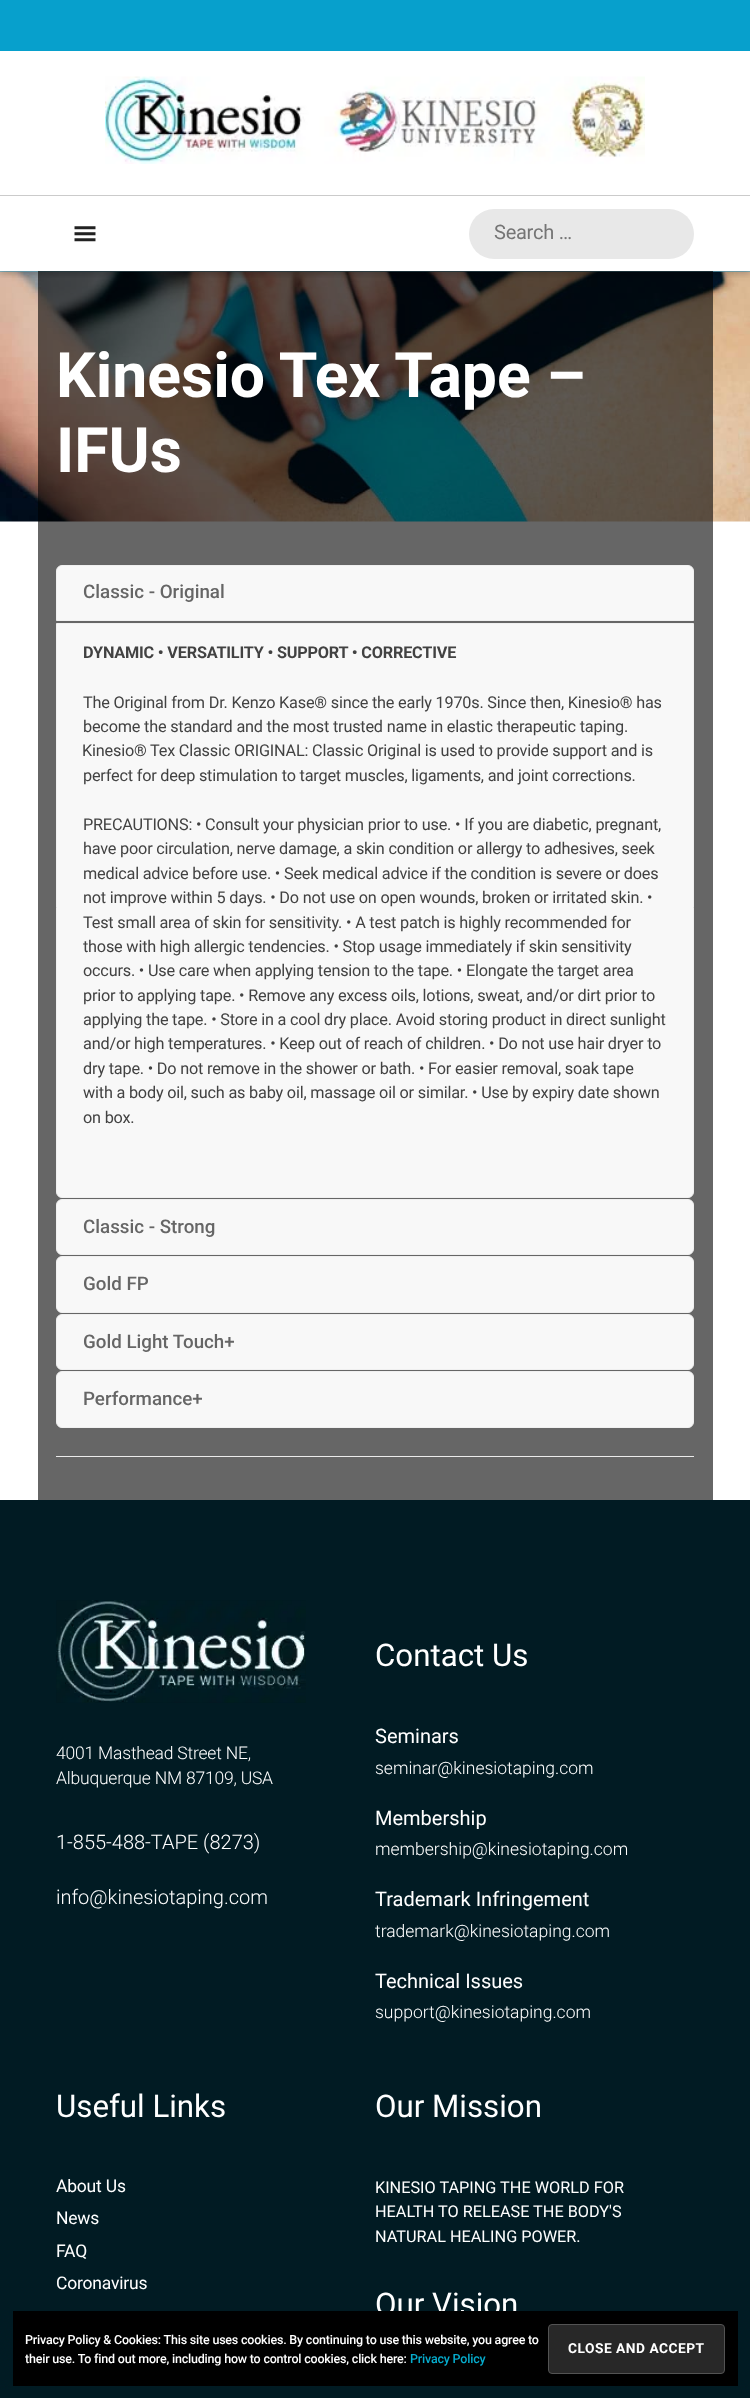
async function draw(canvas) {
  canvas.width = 750
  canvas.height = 2398
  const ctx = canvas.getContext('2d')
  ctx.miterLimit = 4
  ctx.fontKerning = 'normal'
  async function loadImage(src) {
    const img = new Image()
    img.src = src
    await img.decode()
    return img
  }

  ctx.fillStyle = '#fff'
  ctx.fillRect(0, 0, 750, 2398)
  ctx.fillStyle = '#666'
  ctx.fillRect(38, 521, 675, 979)
  ctx.fillStyle = '#6ab5cc'
  ctx.fillRect(0, 271, 750, 1)
  ctx.fillStyle = '#2a4852'
  ctx.fillRect(38, 271, 675, 1)
  ctx.drawImage(await loadImage('image2.png'), 0, 271, 750, 251)
  ctx.save()
  ctx.beginPath()
  ctx.rect(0, 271, 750, 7)
  ctx.clip()
  ctx.fillStyle = '#00000033'
  ctx.filter = 'blur(3px)'
  ctx.beginPath()
  ctx.rect(0, -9, 750, 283)
  ctx.fill()
  ctx.filter = 'none'
  ctx.restore()
  ctx.fillStyle = '#07a0cc'
  ctx.fillRect(0, 0, 750, 51)
  ctx.drawImage(await loadImage('image0.png'), 105, 76, 540, 88)
  ctx.fillStyle = '#cbcbcb'
  ctx.fillRect(0, 195, 750, 1)
  ctx.drawImage(await loadImage('image1.png'), 74, 226, 22, 16)
  ctx.fillStyle = '#e8e8e8'
  ctx.beginPath()
  ctx.roundRect(469, 209, 225, 50, 25)
  ctx.fill()
  ctx.letterSpacing = '-0.25px'
  ctx.font = '20px Roboto'
  ctx.fillStyle = '#757575'
  ctx.fillText('Search …', 494, 239)
  ctx.letterSpacing = '0px'
  ctx.font = 'bold 62.5px Roboto'
  ctx.fillStyle = '#fff'
  ctx.fillText('Kinesio Tex Tape –', 56, 397)
  ctx.fillText('IFUs', 56, 472)
  ctx.fillStyle = '#f8f8f8'
  ctx.beginPath()
  ctx.roundRect(56.5, 565.5, 637, 55, [5.5, 5.5, 0, 0])
  ctx.fill()
  ctx.strokeStyle = '#f0f0f0'
  ctx.stroke()
  ctx.font = '500 18.75px Roboto'
  ctx.fillStyle = '#666'
  ctx.fillText('Classic - Original', 83, 598)
  ctx.fillStyle = '#f8f8f8'
  ctx.beginPath()
  ctx.roundRect(56.5, 623.5, 637, 574, [0, 0, 5.5, 5.5])
  ctx.fill()
  ctx.stroke()
  ctx.letterSpacing = '-0.2px'
  ctx.font = 'bold 16.25px Roboto'
  ctx.fillStyle = '#424242'
  ctx.fillText('DYNAMIC • VERSATILITY • SUPPORT • CORRECTIVE', 83, 658)
  ctx.font = '16.25px Roboto'
  ctx.fillText('The Original from Dr. Kenzo Kase® since the early 1970s. Since then, Kinesio® has', 83, 708)
  ctx.fillText('become the standard and the most trusted name in elastic therapeutic taping.', 83, 732)
  ctx.fillText('Kinesio® Tex Classic ORIGINAL: Classic Original is used to provide support and is', 82, 756)
  ctx.fillText('perfect for deep stimulation to target muscles, ligaments, and joint corrections.', 83, 781)
  ctx.fillText('PRECAUTIONS: • Consult your physician prior to use. • If you are diabetic, pregnant,', 83, 830)
  ctx.fillText('have poor circulation, nerve damage, a skin condition or allergy to adhesives, seek', 83, 854)
  ctx.fillText('medical advice before use. • Seek medical advice if the condition is severe or does', 83, 879)
  ctx.fillText('not improve within 5 days. • Do not use on open wounds, broken or irritated skin. •', 83, 903)
  ctx.fillText('Test small area of skin for sensitivity. • A test patch is highly recommended for', 83, 928)
  ctx.fillText('those with high allergic tendencies. • Stop usage immediately if skin sensitivity', 83, 952)
  ctx.fillText('occurs. • Use care when applying tension to the tape. • Elongate the target area', 83, 976)
  ctx.fillText('prior to applying tape. • Remove any excess oils, lotions, sweat, and/or dirt prior to', 83, 1001)
  ctx.fillText('applying the tape. • Store in a cool dry place. Avoid storing product in direct sunlight', 83, 1025)
  ctx.fillText('and/or high temperatures. • Keep out of reach of children. • Do not use hair dryer to', 83, 1049)
  ctx.fillText('dry tape. • Do not remove in the shower or bath. • For easier removal, soak tape', 83, 1074)
  ctx.fillText('with a body oil, such as baby oil, massage oil or similar. • Use by expiry date shown', 83, 1098)
  ctx.fillText('on box.', 83, 1123)
  ctx.fillStyle = '#f8f8f8'
  ctx.beginPath()
  ctx.roundRect(56.5, 1199.5, 637, 55, 5.5)
  ctx.fill()
  ctx.stroke()
  ctx.letterSpacing = '0px'
  ctx.font = '500 18.75px Roboto'
  ctx.fillStyle = '#666'
  ctx.fillText('Classic - Strong', 83, 1233)
  ctx.fillStyle = '#f8f8f8'
  ctx.beginPath()
  ctx.roundRect(56.5, 1256.5, 637, 56, 5.5)
  ctx.fill()
  ctx.stroke()
  ctx.fillStyle = '#666'
  ctx.fillText('Gold FP', 83, 1290)
  ctx.fillStyle = '#f8f8f8'
  ctx.beginPath()
  ctx.roundRect(56.5, 1314.5, 637, 55, 5.5)
  ctx.fill()
  ctx.stroke()
  ctx.fillStyle = '#666'
  ctx.fillText('Gold Light Touch+', 83, 1348)
  ctx.fillStyle = '#f8f8f8'
  ctx.beginPath()
  ctx.roundRect(56.5, 1371.5, 637, 56, 5.5)
  ctx.fill()
  ctx.stroke()
  ctx.fillStyle = '#666'
  ctx.fillText('Performance+', 83, 1405)
  ctx.fillStyle = '#ebebeb'
  ctx.fillRect(56, 1456, 638, 1)
  ctx.fillStyle = '#011b23'
  ctx.fillRect(0, 1500, 750, 898)
  ctx.drawImage(await loadImage('image3.png'), 56, 1600, 250, 103)
  ctx.letterSpacing = '-0.2px'
  ctx.font = '300 17.5px Roboto'
  ctx.fillStyle = '#fff'
  ctx.fillText('4001 Masthead Street NE,', 56, 1759)
  ctx.fillText('Albuquerque NM 87109, USA', 56, 1784)
  ctx.letterSpacing = '0px'
  ctx.font = '300 20px Roboto'
  ctx.fillText('1-855-488-TAPE (8273)', 56, 1849)
  ctx.fillText('info@kinesiotaping.com', 56, 1904)
  ctx.font = '31.25px Roboto'
  ctx.fillText('Contact Us', 375, 1666)
  ctx.font = '20px Roboto'
  ctx.fillText('Seminars', 375, 1743)
  ctx.font = '300 17.5px Roboto'
  ctx.fillText('seminar@kinesiotaping.com', 375, 1774)
  ctx.font = '20px Roboto'
  ctx.fillText('Membership', 375, 1825)
  ctx.font = '300 17.5px Roboto'
  ctx.fillText('membership@kinesiotaping.com', 375, 1855)
  ctx.font = '20px Roboto'
  ctx.fillText('Trademark Infringement', 375, 1906)
  ctx.font = '300 17.5px Roboto'
  ctx.fillText('trademark@kinesiotaping.com', 375, 1937)
  ctx.font = '20px Roboto'
  ctx.fillText('Technical Issues', 375, 1988)
  ctx.font = '300 17.5px Roboto'
  ctx.fillText('support@kinesiotaping.com', 375, 2018)
  ctx.font = '31.25px Roboto'
  ctx.fillText('Useful Links', 56, 2117)
  ctx.letterSpacing = '-0.2px'
  ctx.font = '17.5px Roboto'
  ctx.fillText('About Us', 56, 2192)
  ctx.fillText('News', 56, 2224)
  ctx.fillText('FAQ', 56, 2257)
  ctx.fillText('Coronavirus', 56, 2289)
  ctx.letterSpacing = '0px'
  ctx.font = '31.25px Roboto'
  ctx.fillText('Our Mission', 375, 2117)
  ctx.font = '16.25px Roboto'
  ctx.fillText('KINESIO TAPING THE WORLD FOR', 375, 2193)
  ctx.fillText('HEALTH TO RELEASE THE BODY\'S', 375, 2217)
  ctx.fillText('NATURAL HEALING POWER.', 375, 2242)
  ctx.font = '31.25px Roboto'
  ctx.fillText('Our Vision', 375, 2315)
  ctx.fillStyle = '#000'
  ctx.fillRect(13, 2311, 725, 75)
  ctx.letterSpacing = '-0.2px'
  ctx.font = '500 12.5px Roboto'
  ctx.fillStyle = '#fff'
  ctx.fillText('Privacy Policy & Cookies: This site uses cookies. By continuing to use this website, you agree to', 25, 2344)
  ctx.fillText('their use. To find out more, including how to control cookies, click here:', 25, 2363)
  ctx.fillStyle = '#06accd'
  ctx.fillText('Privacy Policy', 410, 2363)
  ctx.fillStyle = '#282828'
  ctx.beginPath()
  ctx.roundRect(548.5, 2324.5, 176, 49, 3.5)
  ctx.fill()
  ctx.strokeStyle = '#535353'
  ctx.stroke()
  ctx.letterSpacing = '0.5px'
  ctx.font = 'bold 13.75px Roboto'
  ctx.fillStyle = '#fff'
  ctx.fillText('CLOSE AND ACCEPT', 568, 2353)
}

draw(document.querySelector('canvas'))
